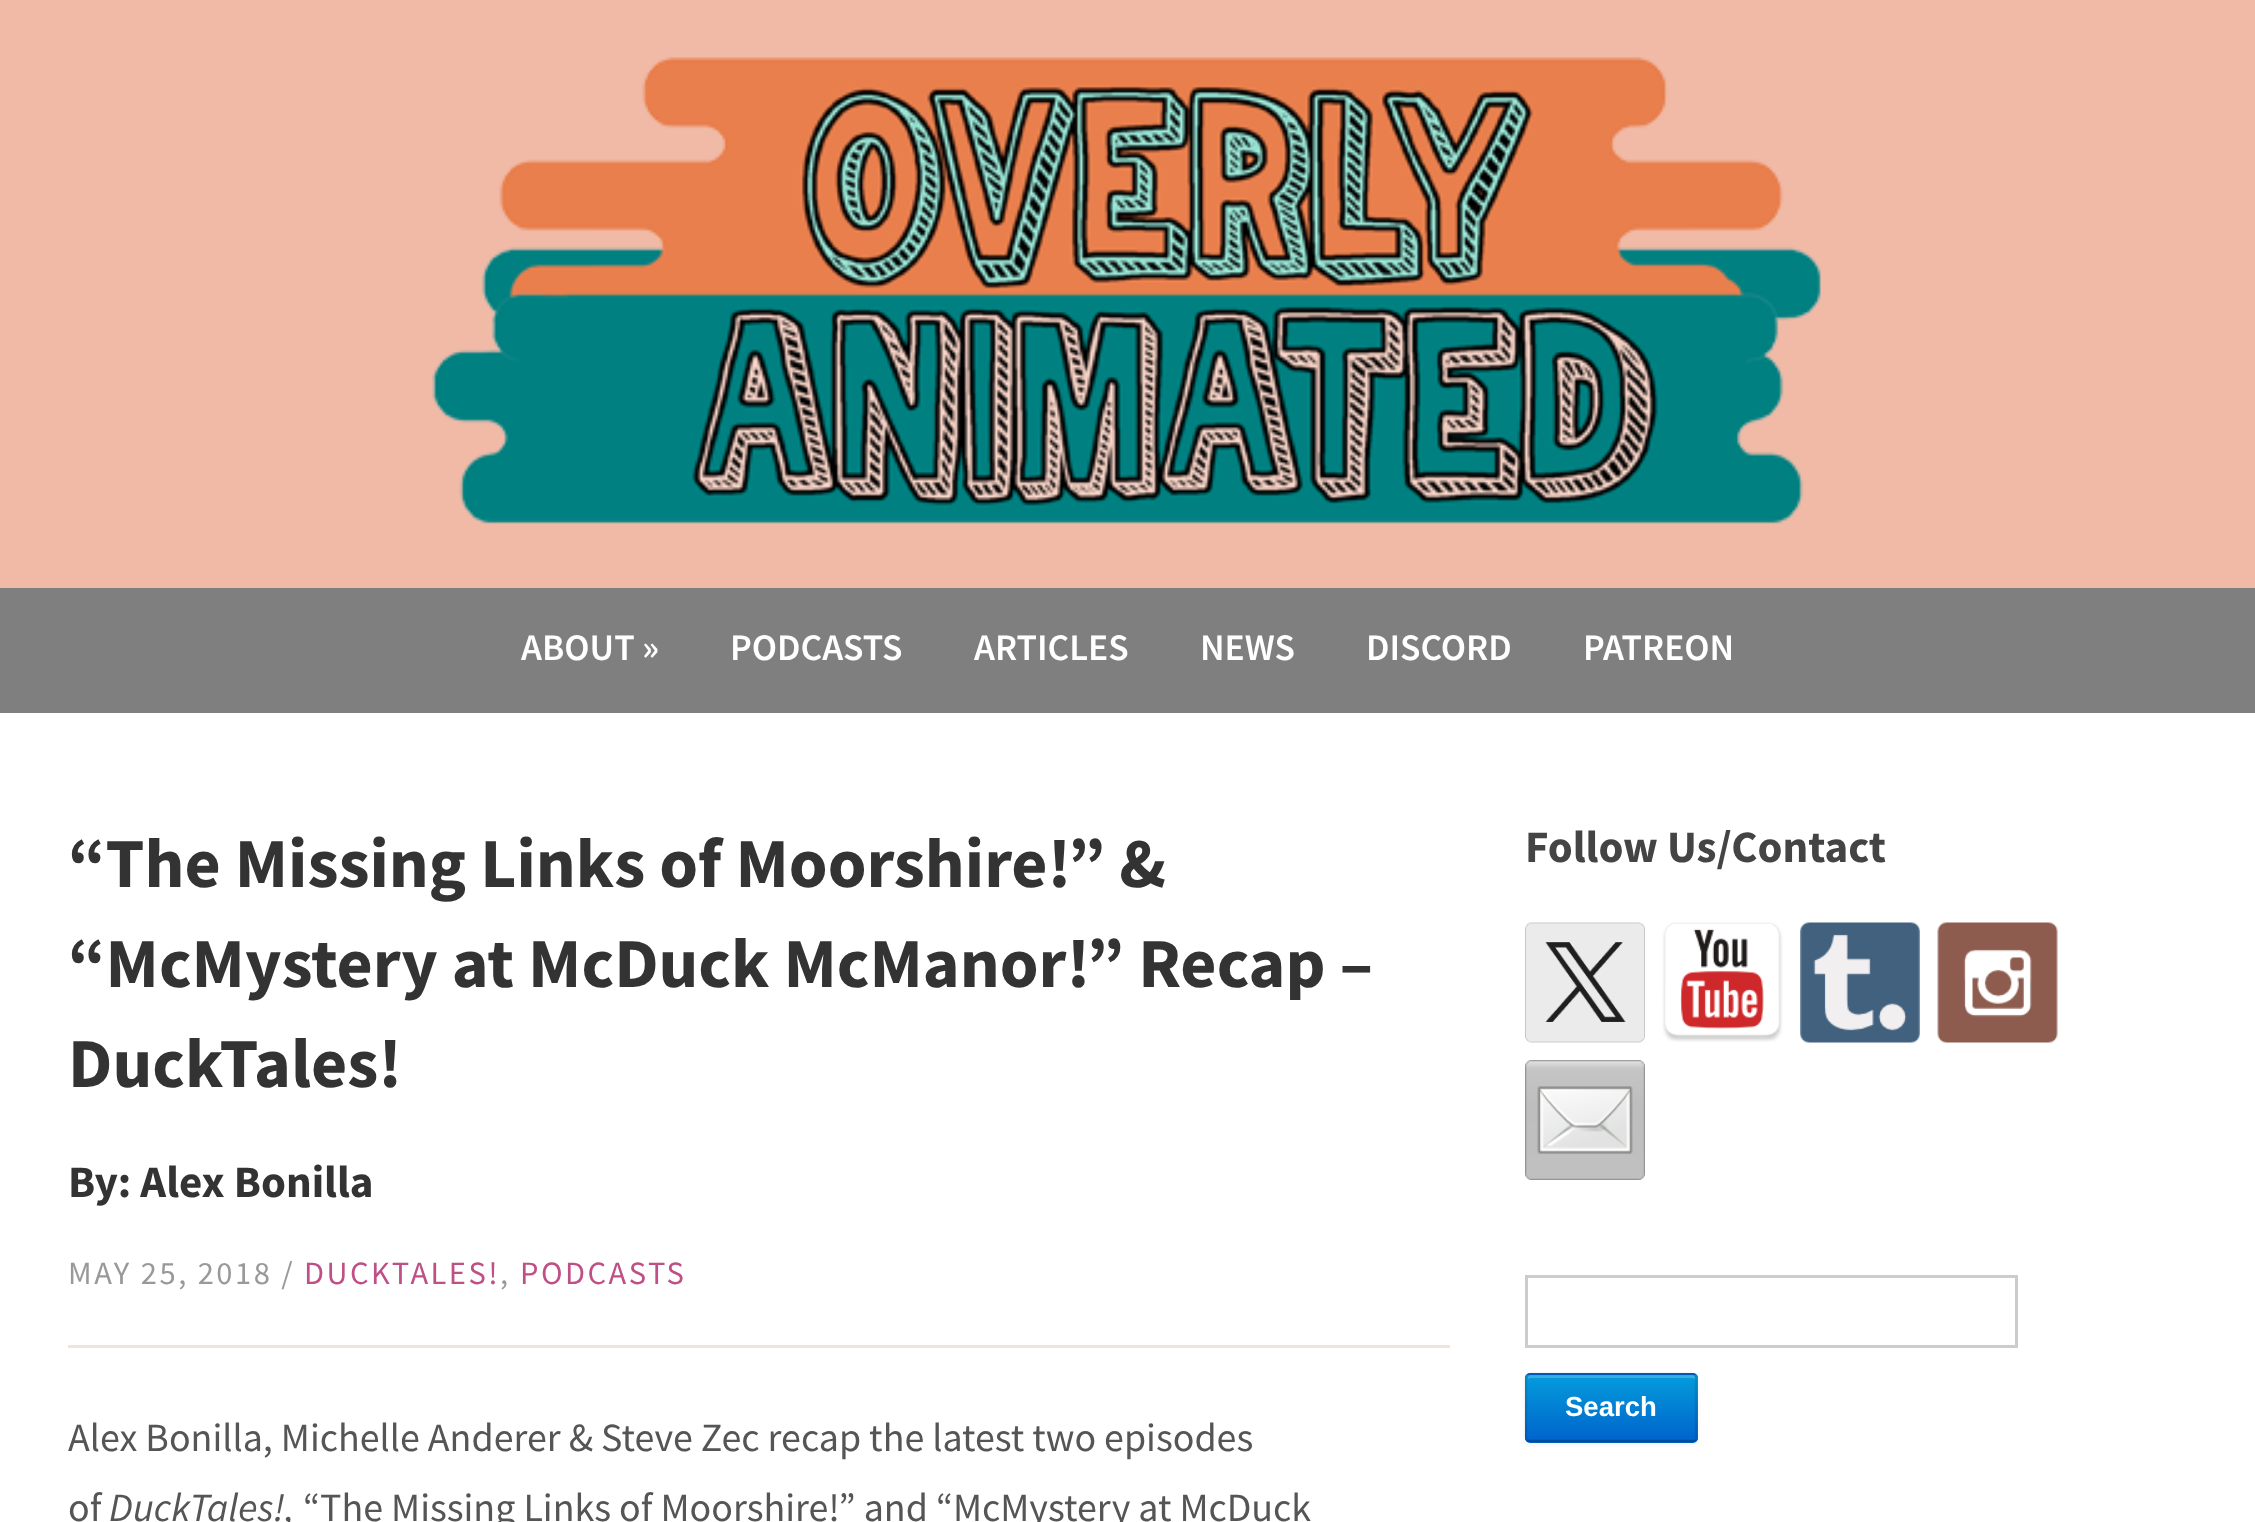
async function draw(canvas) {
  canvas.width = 2255
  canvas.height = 1522
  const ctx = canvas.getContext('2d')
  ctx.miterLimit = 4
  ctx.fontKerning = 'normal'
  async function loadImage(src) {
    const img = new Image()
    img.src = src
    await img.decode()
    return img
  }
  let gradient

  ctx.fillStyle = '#f1baa6'
  ctx.fillRect(0, 0, 2255, 1522)
  ctx.drawImage(await loadImage('image0.png'), 432, 57, 1389, 467)
  ctx.fillStyle = '#7f7f7f'
  ctx.fillRect(0, 588, 2255, 125)
  ctx.font = '600 37.5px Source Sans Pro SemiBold'
  ctx.fillStyle = '#fff'
  ctx.fillText('ABOUT »', 521, 660)
  ctx.fillText('PODCASTS', 730, 660)
  ctx.fillText('ARTICLES', 974, 660)
  ctx.fillText('NEWS', 1200, 660)
  ctx.fillText('DISCORD', 1366, 660)
  ctx.fillText('PATREON', 1583, 660)
  ctx.fillRect(0, 713, 2255, 809)
  ctx.font = 'bold 70px Source Sans Pro'
  ctx.fillStyle = '#333'
  ctx.fillText('“The Missing Links of Moorshire!” &', 68, 887)
  ctx.fillText('“McMystery at McDuck McManor!” Recap –', 68, 987)
  ctx.fillText('DuckTales!', 68, 1087)
  ctx.font = 'bold 45px Source Sans Pro'
  ctx.fillText('By: Alex Bonilla', 68, 1197)
  ctx.letterSpacing = '2.5px'
  ctx.font = '32.5px Source Sans Pro'
  ctx.fillStyle = '#999'
  ctx.fillText('MAY 25, 2018 /', 68, 1284)
  ctx.fillStyle = '#bf5085'
  ctx.fillText('DUCKTALES!', 304, 1284)
  ctx.fillStyle = '#999'
  ctx.fillText(',', 500, 1284)
  ctx.fillStyle = '#bf5085'
  ctx.fillText('PODCASTS', 520, 1284)
  ctx.fillStyle = '#f0e5d8'
  ctx.fillRect(68, 1345, 1382, 3)
  ctx.letterSpacing = '0px'
  ctx.font = '40px Source Sans Pro'
  ctx.fillStyle = '#555'
  ctx.fillText('Alex Bonilla, Michelle Anderer & Steve Zec recap the latest two episodes', 68, 1451)
  ctx.fillText('of', 68, 1521)
  ctx.font = 'italic 40px Source Sans Pro'
  ctx.fillText('DuckTales!,', 109, 1521)
  ctx.font = '40px Source Sans Pro'
  ctx.fillText('“The Missing Links of Moorshire!” and “McMystery at McDuck', 303, 1521)
  ctx.font = 'bold 45px Source Sans Pro'
  ctx.fillStyle = '#444'
  ctx.fillText('Follow Us/Contact', 1525, 862)
  ctx.drawImage(await loadImage('image1.png'), 1525, 922, 120, 121)
  ctx.drawImage(await loadImage('image2.png'), 1662, 922, 121, 120)
  ctx.drawImage(await loadImage('image3.png'), 1800, 922, 120, 121)
  ctx.drawImage(await loadImage('image4.png'), 1937, 922, 121, 121)
  ctx.drawImage(await loadImage('image5.png'), 1525, 1060, 120, 120)
  ctx.strokeStyle = '#ccc'
  ctx.lineWidth = 3
  ctx.strokeRect(1526.5, 1276.5, 490, 70)
  ctx.fillStyle = '#0000000d'
  ctx.filter = 'blur(2.5px)'
  ctx.beginPath()
  ctx.roundRect(1525, 1375, 173, 70, 5)
  ctx.fill()
  ctx.filter = 'none'
  ctx.fillStyle = '#0064cd'
  ctx.beginPath()
  ctx.roundRect(1525, 1373, 173, 70, 5)
  ctx.fill()
  ctx.save()
  ctx.beginPath()
  ctx.roundRect(1525, 1373, 173, 70, 5)
  ctx.clip()
  gradient = ctx.createLinearGradient(1611, 1375, 1611, 1440)
  gradient.addColorStop(0, '#049cdb')
  gradient.addColorStop(1, '#0064cd')
  ctx.fillStyle = gradient
  ctx.fillRect(1525, 1375, 173, 65)
  ctx.restore()
  ctx.fillStyle = '#ffffff33'
  ctx.beginPath()
  ctx.moveTo(1530, 1378)
  ctx.lineTo(1692, 1378)
  ctx.bezierCurveTo(1694, 1378, 1695, 1379, 1695, 1380)
  ctx.lineTo(1695, 1378)
  ctx.bezierCurveTo(1695, 1376, 1694, 1375, 1692, 1375)
  ctx.lineTo(1530, 1375)
  ctx.bezierCurveTo(1529, 1375, 1528, 1376, 1528, 1378)
  ctx.lineTo(1528, 1380)
  ctx.bezierCurveTo(1528, 1379, 1529, 1378, 1530, 1378)
  ctx.closePath()
  ctx.fill()
  ctx.beginPath()
  ctx.moveTo(1695, 1440)
  ctx.bezierCurveTo(1694.5, 1441, 1693.5, 1441, 1692.5, 1441)
  ctx.lineTo(1530, 1441)
  ctx.bezierCurveTo(1529, 1441, 1528, 1441, 1527.5, 1440)
  ctx.strokeStyle = '#004b9a'
  ctx.lineWidth = 2.5
  ctx.stroke()
  ctx.beginPath()
  ctx.moveTo(1527.5, 1440)
  ctx.bezierCurveTo(1526.5, 1439.5, 1526, 1438.5, 1526, 1437.5)
  ctx.lineTo(1526, 1377.5)
  ctx.bezierCurveTo(1526, 1376.5, 1526.5, 1375.5, 1527.5, 1375)
  ctx.bezierCurveTo(1528, 1374, 1529, 1374, 1530, 1374)
  ctx.lineTo(1692.5, 1374)
  ctx.bezierCurveTo(1693.5, 1374, 1694.5, 1374, 1695, 1375)
  ctx.bezierCurveTo(1696, 1375.5, 1696, 1376.5, 1696, 1377.5)
  ctx.lineTo(1696, 1437.5)
  ctx.bezierCurveTo(1696, 1438.5, 1696, 1439.5, 1695, 1440)
  ctx.strokeStyle = '#0000001a'
  ctx.stroke()
  ctx.font = 'bold 27.5px Liberation Sans'
  ctx.fillStyle = '#fff'
  ctx.fillText('Search', 1565, 1416)
}

draw(document.querySelector('canvas'))
